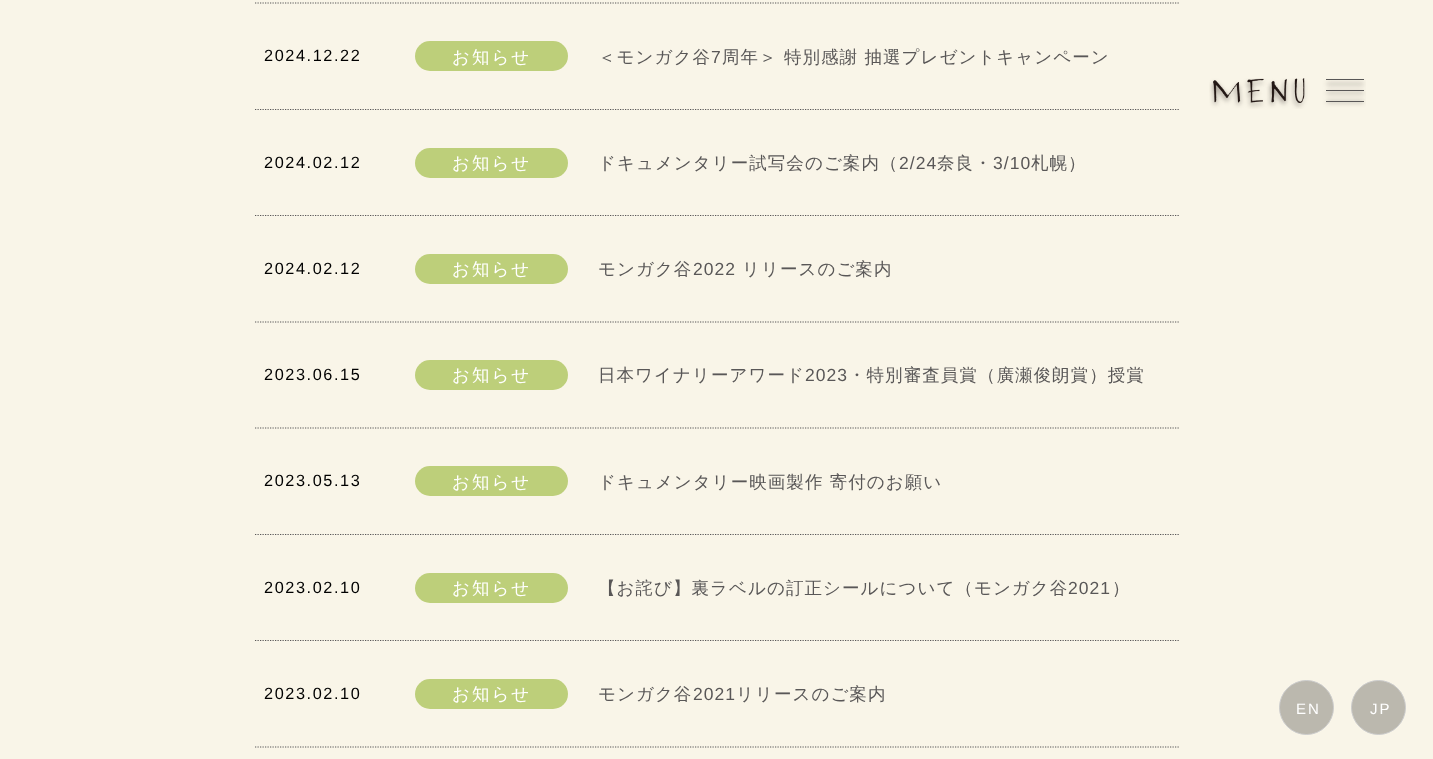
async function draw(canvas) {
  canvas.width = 1433
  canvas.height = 759
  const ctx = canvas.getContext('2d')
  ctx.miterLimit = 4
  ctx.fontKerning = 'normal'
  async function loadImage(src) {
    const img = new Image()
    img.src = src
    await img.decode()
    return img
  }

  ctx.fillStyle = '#f9f5e8'
  ctx.fillRect(0, 0, 1433, 759)
  ctx.beginPath()
  ctx.moveTo(255, 3)
  ctx.lineTo(1180, 3)
  ctx.strokeStyle = '#595757'
  ctx.lineWidth = 1.2
  ctx.setLineDash([1.25, 1.25])
  ctx.stroke()
  ctx.beginPath()
  ctx.moveTo(255, 109.5)
  ctx.lineTo(1180, 109.5)
  ctx.stroke()
  ctx.letterSpacing = '1.6px'
  ctx.font = '16.25px Liberation Sans'
  ctx.fillStyle = '#000'
  ctx.fillText('2024.12.22', 264, 61)
  ctx.fillStyle = '#bdcf7a'
  ctx.beginPath()
  ctx.roundRect(415, 41, 153, 30, 15)
  ctx.fill()
  ctx.letterSpacing = '2px'
  ctx.font = '500 17.5px WenQuanYi Zen Hei'
  ctx.fillStyle = '#fff'
  ctx.fillText('お知らせ', 452, 63)
  ctx.letterSpacing = '1.05px'
  ctx.fillStyle = '#595757'
  ctx.fillText('＜モンガク谷', 598, 63)
  ctx.font = '17.5px Liberation Sans'
  ctx.fillText('7', 711, 63)
  ctx.font = '500 17.5px WenQuanYi Zen Hei'
  ctx.fillText('周年＞ 特別感謝 抽選プレゼントキャンペーン', 722, 63)
  ctx.beginPath()
  ctx.moveTo(255, 215.5)
  ctx.lineTo(1180, 215.5)
  ctx.stroke()
  ctx.letterSpacing = '1.6px'
  ctx.font = '16.25px Liberation Sans'
  ctx.fillStyle = '#000'
  ctx.fillText('2024.02.12', 264, 168)
  ctx.fillStyle = '#bdcf7a'
  ctx.beginPath()
  ctx.roundRect(415, 148, 153, 30, 15)
  ctx.fill()
  ctx.letterSpacing = '2px'
  ctx.font = '500 17.5px WenQuanYi Zen Hei'
  ctx.fillStyle = '#fff'
  ctx.fillText('お知らせ', 452, 169)
  ctx.letterSpacing = '1.05px'
  ctx.fillStyle = '#595757'
  ctx.fillText('ドキュメンタリー試写会のご案内（', 598, 169)
  ctx.font = '17.5px Liberation Sans'
  ctx.fillText('2/24', 899, 169)
  ctx.font = '500 17.5px WenQuanYi Zen Hei'
  ctx.fillText('奈良・', 937, 169)
  ctx.font = '17.5px Liberation Sans'
  ctx.fillText('3/10', 993, 169)
  ctx.font = '500 17.5px WenQuanYi Zen Hei'
  ctx.fillText('札幌）', 1031, 169)
  ctx.beginPath()
  ctx.moveTo(255, 322)
  ctx.lineTo(1180, 322)
  ctx.stroke()
  ctx.letterSpacing = '1.6px'
  ctx.font = '16.25px Liberation Sans'
  ctx.fillStyle = '#000'
  ctx.fillText('2024.02.12', 264, 274)
  ctx.fillStyle = '#bdcf7a'
  ctx.beginPath()
  ctx.roundRect(415, 254, 153, 30, 15)
  ctx.fill()
  ctx.letterSpacing = '2px'
  ctx.font = '500 17.5px WenQuanYi Zen Hei'
  ctx.fillStyle = '#fff'
  ctx.fillText('お知らせ', 452, 275)
  ctx.letterSpacing = '1.05px'
  ctx.fillStyle = '#595757'
  ctx.fillText('モンガク谷', 598, 275)
  ctx.font = '17.5px Liberation Sans'
  ctx.fillText('2022', 693, 275)
  ctx.font = '500 17.5px WenQuanYi Zen Hei'
  ctx.fillText('リリースのご案内', 742, 275)
  ctx.beginPath()
  ctx.moveTo(255, 428)
  ctx.lineTo(1180, 428)
  ctx.stroke()
  ctx.letterSpacing = '1.6px'
  ctx.font = '16.25px Liberation Sans'
  ctx.fillStyle = '#000'
  ctx.fillText('2023.06.15', 264, 380)
  ctx.fillStyle = '#bdcf7a'
  ctx.beginPath()
  ctx.roundRect(415, 360, 153, 30, 15)
  ctx.fill()
  ctx.letterSpacing = '2px'
  ctx.font = '500 17.5px WenQuanYi Zen Hei'
  ctx.fillStyle = '#fff'
  ctx.fillText('お知らせ', 452, 381)
  ctx.letterSpacing = '1.05px'
  ctx.fillStyle = '#595757'
  ctx.fillText('日本ワイナリーアワード', 598, 381)
  ctx.font = '17.5px Liberation Sans'
  ctx.fillText('2023', 805, 381)
  ctx.font = '500 17.5px WenQuanYi Zen Hei'
  ctx.fillText('・特別審査員賞（廣瀬俊朗賞）授賞', 848, 381)
  ctx.beginPath()
  ctx.moveTo(255, 534.5)
  ctx.lineTo(1180, 534.5)
  ctx.stroke()
  ctx.letterSpacing = '1.6px'
  ctx.font = '16.25px Liberation Sans'
  ctx.fillStyle = '#000'
  ctx.fillText('2023.05.13', 264, 486)
  ctx.fillStyle = '#bdcf7a'
  ctx.beginPath()
  ctx.roundRect(415, 466, 153, 30, 15)
  ctx.fill()
  ctx.letterSpacing = '2px'
  ctx.font = '500 17.5px WenQuanYi Zen Hei'
  ctx.fillStyle = '#fff'
  ctx.fillText('お知らせ', 452, 488)
  ctx.letterSpacing = '1.05px'
  ctx.fillStyle = '#595757'
  ctx.fillText('ドキュメンタリー映画製作 寄付のお願い', 598, 488)
  ctx.beginPath()
  ctx.moveTo(255, 640.5)
  ctx.lineTo(1180, 640.5)
  ctx.stroke()
  ctx.letterSpacing = '1.6px'
  ctx.font = '16.25px Liberation Sans'
  ctx.fillStyle = '#000'
  ctx.fillText('2023.02.10', 264, 593)
  ctx.fillStyle = '#bdcf7a'
  ctx.beginPath()
  ctx.roundRect(415, 573, 153, 30, 15)
  ctx.fill()
  ctx.letterSpacing = '2px'
  ctx.font = '500 17.5px WenQuanYi Zen Hei'
  ctx.fillStyle = '#fff'
  ctx.fillText('お知らせ', 452, 594)
  ctx.letterSpacing = '1.05px'
  ctx.fillStyle = '#595757'
  ctx.fillText('【お詫び】裏ラベルの訂正シールについて（モンガク谷', 598, 594)
  ctx.font = '17.5px Liberation Sans'
  ctx.fillText('2021', 1068, 594)
  ctx.font = '500 17.5px WenQuanYi Zen Hei'
  ctx.fillText('）', 1112, 594)
  ctx.beginPath()
  ctx.moveTo(255, 747)
  ctx.lineTo(1180, 747)
  ctx.stroke()
  ctx.letterSpacing = '1.6px'
  ctx.font = '16.25px Liberation Sans'
  ctx.fillStyle = '#000'
  ctx.fillText('2023.02.10', 264, 699)
  ctx.fillStyle = '#bdcf7a'
  ctx.beginPath()
  ctx.roundRect(415, 679, 153, 30, 15)
  ctx.fill()
  ctx.letterSpacing = '2px'
  ctx.font = '500 17.5px WenQuanYi Zen Hei'
  ctx.fillStyle = '#fff'
  ctx.fillText('お知らせ', 452, 700)
  ctx.letterSpacing = '1.05px'
  ctx.fillStyle = '#595757'
  ctx.fillText('モンガク谷', 598, 700)
  ctx.font = '17.5px Liberation Sans'
  ctx.fillText('2021', 693, 700)
  ctx.font = '500 17.5px WenQuanYi Zen Hei'
  ctx.fillText('リリースのご案内', 736, 700)
  ctx.drawImage(await loadImage('image0.png'), 1209, 78, 157, 31)
  ctx.drawImage(await loadImage('image1.png'), 1213, 78, 92, 25)
  ctx.fillRect(1326, 79, 38, 1)
  ctx.fillRect(1326, 90, 38, 1)
  ctx.fillRect(1326, 101, 38, 1)
  ctx.fillStyle = '#bbb8ae'
  ctx.beginPath()
  ctx.arc(1306.5, 707.5, 27, 0, 2 * Math.PI)
  ctx.fill()
  ctx.strokeStyle = '#ccc'
  ctx.lineWidth = 1
  ctx.setLineDash([])
  ctx.stroke()
  ctx.letterSpacing = '2px'
  ctx.font = '15px Liberation Sans'
  ctx.fillStyle = '#fff'
  ctx.fillText('EN', 1296, 714)
  ctx.fillStyle = '#bbb8ae'
  ctx.beginPath()
  ctx.arc(1378.5, 707.5, 27, 0, 2 * Math.PI)
  ctx.fill()
  ctx.stroke()
  ctx.fillStyle = '#fff'
  ctx.fillText('JP', 1370, 714)
}

draw(document.querySelector('canvas'))
